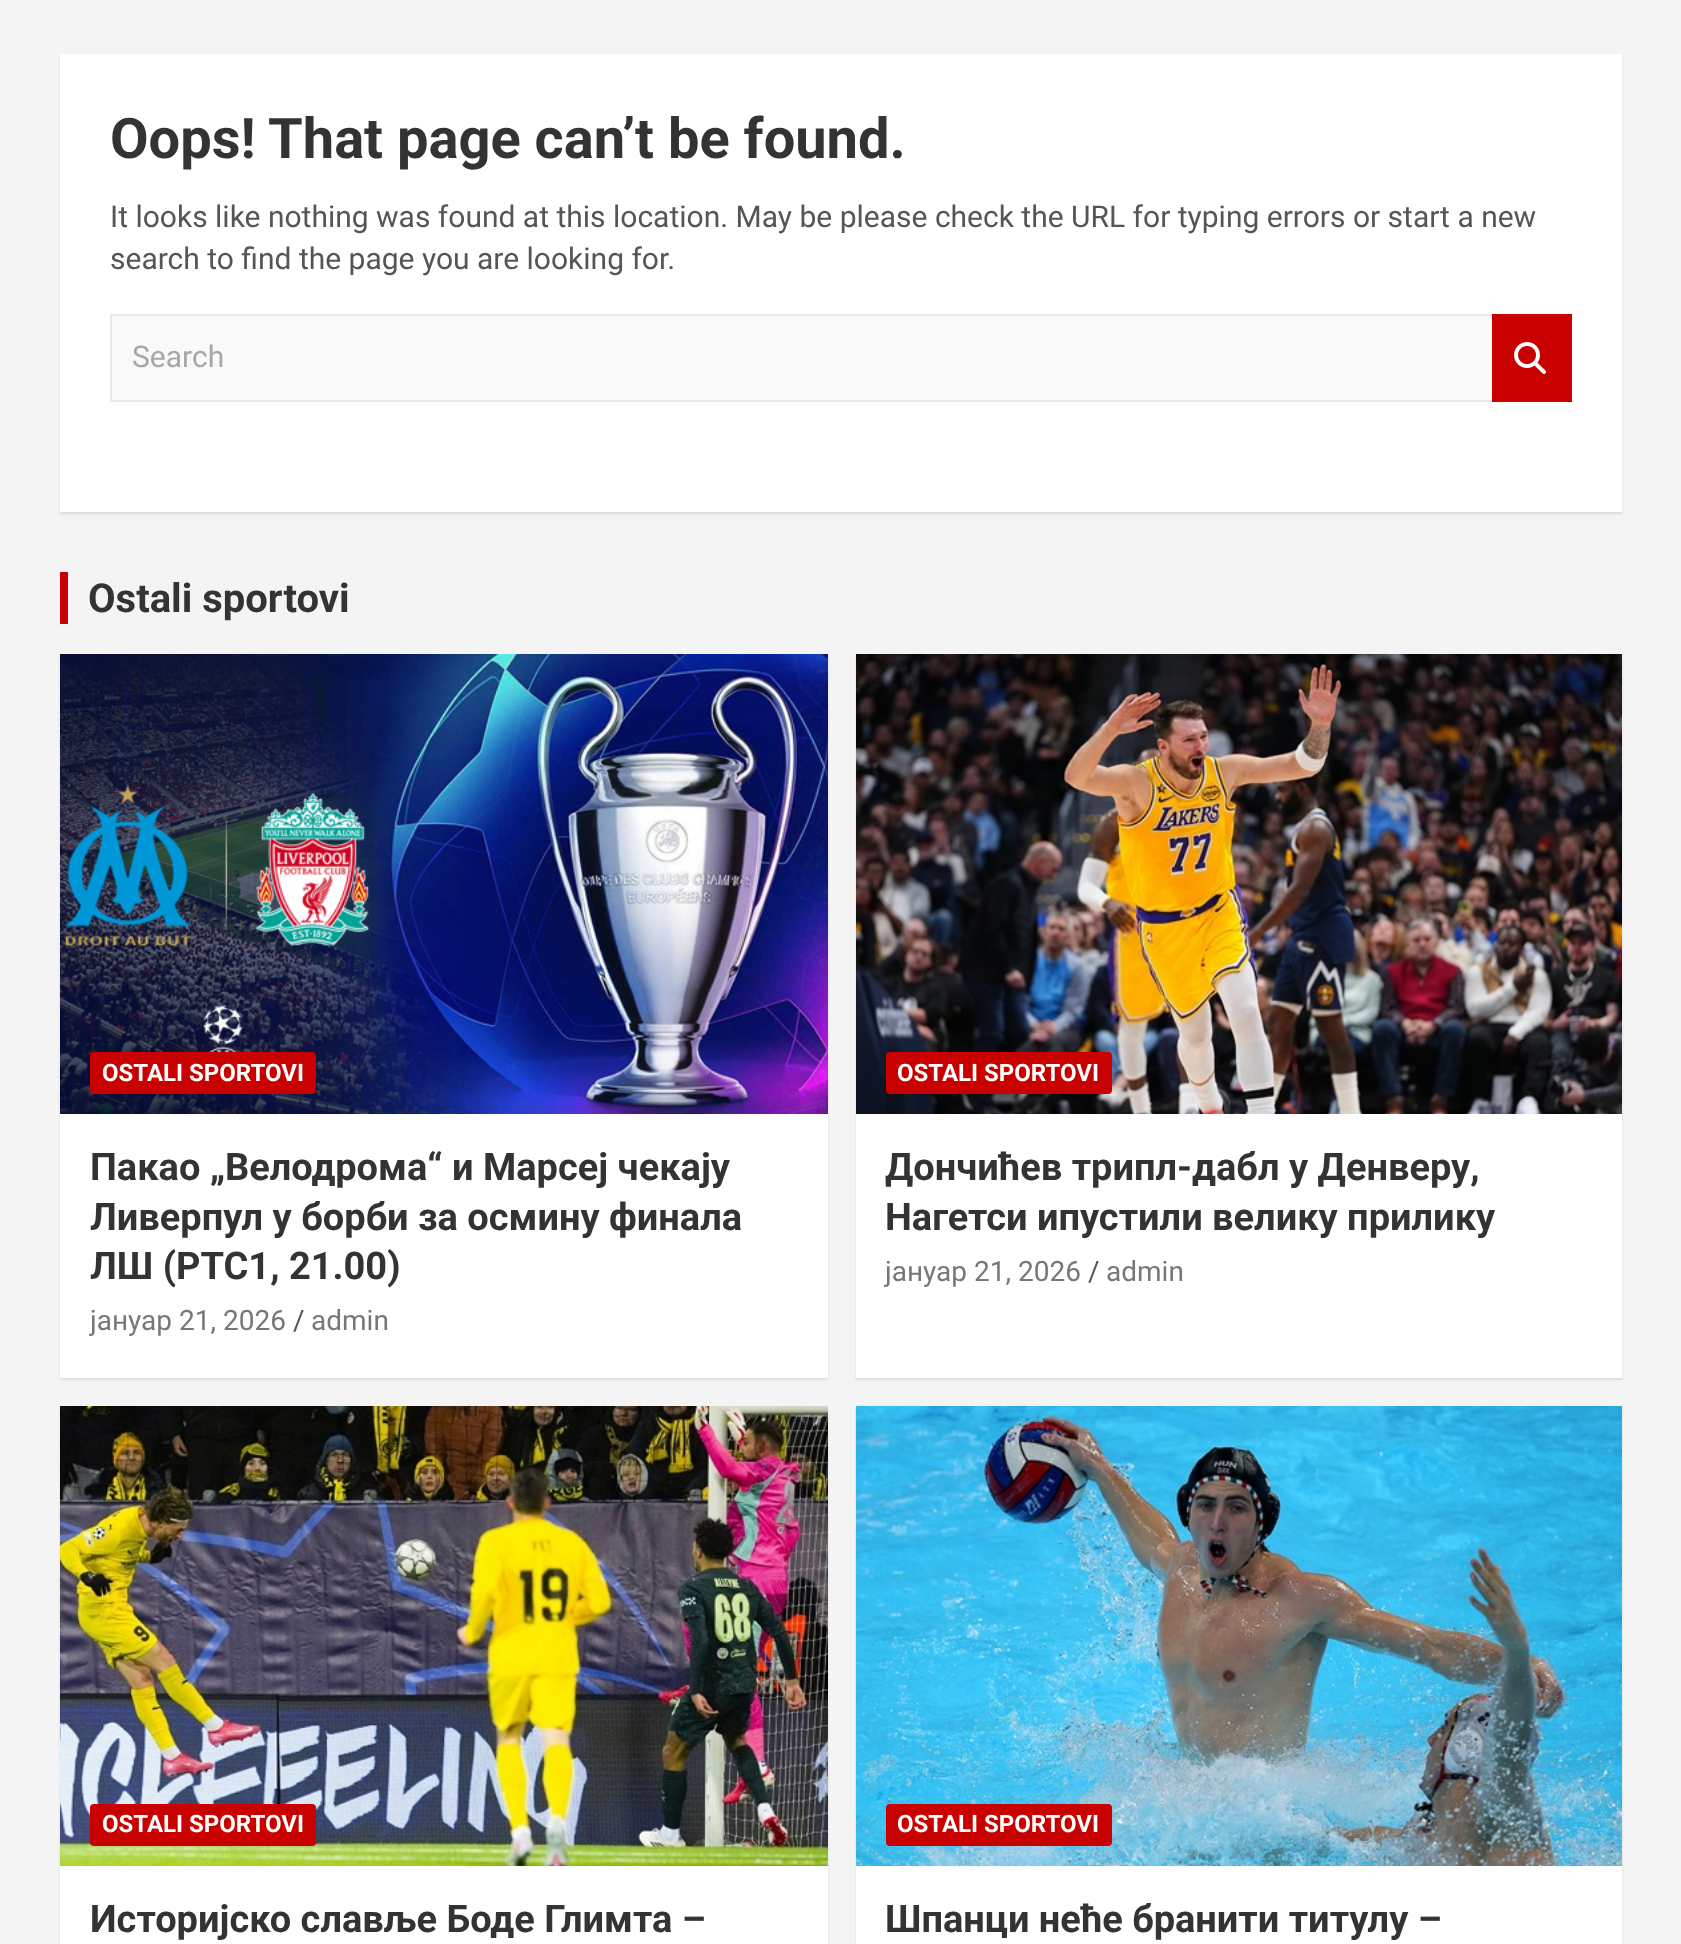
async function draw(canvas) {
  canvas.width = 1681
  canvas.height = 1944
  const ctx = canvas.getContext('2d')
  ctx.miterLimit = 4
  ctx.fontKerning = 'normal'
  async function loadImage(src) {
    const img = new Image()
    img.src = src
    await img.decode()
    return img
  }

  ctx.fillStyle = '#f4f4f4'
  ctx.fillRect(0, 0, 1681, 1944)
  ctx.fillStyle = '#0000001a'
  ctx.filter = 'blur(1px)'
  ctx.beginPath()
  ctx.rect(60, 56, 1562, 458)
  ctx.fill()
  ctx.filter = 'none'
  ctx.fillStyle = '#fff'
  ctx.fillRect(60, 54, 1562, 458)
  ctx.font = 'bold 56px Roboto'
  ctx.fillStyle = '#333'
  ctx.fillText('Oops! That page can’t be found.', 110, 158)
  ctx.font = '30px Roboto'
  ctx.fillStyle = '#555'
  ctx.fillText('It looks like nothing was found at this location. May be please check the URL for typing errors or start a new', 110, 227)
  ctx.fillText('search to find the page you are looking for.', 110, 269)
  ctx.fillStyle = '#f9f9f9'
  ctx.fillRect(112, 316, 1380, 84)
  ctx.fillStyle = '#e8e8e8'
  ctx.beginPath()
  ctx.moveTo(110, 314)
  ctx.lineTo(1492, 314)
  ctx.lineTo(1492, 316)
  ctx.lineTo(112, 316)
  ctx.closePath()
  ctx.fill()
  ctx.beginPath()
  ctx.moveTo(1492, 402)
  ctx.lineTo(110, 402)
  ctx.lineTo(112, 400)
  ctx.lineTo(1492, 400)
  ctx.closePath()
  ctx.fill()
  ctx.fillStyle = '#00000017'
  ctx.beginPath()
  ctx.moveTo(110, 402)
  ctx.lineTo(110, 314)
  ctx.lineTo(112, 316)
  ctx.lineTo(112, 400)
  ctx.closePath()
  ctx.fill()
  ctx.fillStyle = '#a7a7a7'
  ctx.fillText('Search', 132, 367)
  ctx.fillStyle = '#c80000'
  ctx.fillRect(1492, 314, 80, 88)
  ctx.drawImage(await loadImage('image0.png'), 1514, 342, 32, 32)
  ctx.fillRect(60, 572, 8, 52)
  ctx.font = 'bold 40px Roboto'
  ctx.fillStyle = '#333'
  ctx.fillText('Ostali sportovi', 88, 612)
  ctx.fillStyle = '#0000001a'
  ctx.filter = 'blur(1px)'
  ctx.beginPath()
  ctx.rect(60, 656, 768, 724)
  ctx.fill()
  ctx.filter = 'none'
  ctx.fillStyle = '#fff'
  ctx.fillRect(60, 1114, 768, 264)
  ctx.drawImage(await loadImage('image1.png'), 60, 654, 768, 460)
  ctx.fillStyle = '#c80000'
  ctx.beginPath()
  ctx.roundRect(90, 1052, 226, 42, 4)
  ctx.fill()
  ctx.font = 'bold 24px Roboto'
  ctx.fillStyle = '#fff'
  ctx.fillText('OSTALI SPORTOVI', 102, 1081)
  ctx.font = 'bold 38px Roboto'
  ctx.fillStyle = '#333'
  ctx.fillText('Пакао „Велодрома“ и Марсеј чекају', 90, 1180)
  ctx.fillText('Ливерпул у борби за осмину финала', 90, 1230)
  ctx.fillText('ЛШ (РТС1, 21.00)', 90, 1279)
  ctx.font = '28px Roboto'
  ctx.fillStyle = '#777'
  ctx.fillText('јануар 21, 2026', 90, 1330)
  ctx.fillStyle = '#555'
  ctx.fillText('/', 293, 1330)
  ctx.fillStyle = '#777'
  ctx.fillText('admin', 311, 1330)
  ctx.fillStyle = '#0000001a'
  ctx.filter = 'blur(1px)'
  ctx.beginPath()
  ctx.rect(856, 656, 766, 724)
  ctx.fill()
  ctx.filter = 'none'
  ctx.fillStyle = '#fff'
  ctx.fillRect(856, 1114, 766, 264)
  ctx.drawImage(await loadImage('image2.png'), 856, 654, 766, 460)
  ctx.fillStyle = '#c80000'
  ctx.beginPath()
  ctx.roundRect(886, 1052, 226, 42, 4)
  ctx.fill()
  ctx.font = 'bold 24px Roboto'
  ctx.fillStyle = '#fff'
  ctx.fillText('OSTALI SPORTOVI', 897, 1081)
  ctx.font = 'bold 38px Roboto'
  ctx.fillStyle = '#333'
  ctx.fillText('Дончићев трипл-дабл у Денверу,', 885, 1180)
  ctx.fillText('Нагетси ипустили велику прилику', 885, 1230)
  ctx.font = '28px Roboto'
  ctx.fillStyle = '#777'
  ctx.fillText('јануар 21, 2026', 885, 1281)
  ctx.fillStyle = '#555'
  ctx.fillText('/', 1088, 1281)
  ctx.fillStyle = '#777'
  ctx.fillText('admin', 1106, 1281)
  ctx.fillStyle = '#0000001a'
  ctx.filter = 'blur(1px)'
  ctx.beginPath()
  ctx.rect(60, 1408, 768, 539)
  ctx.fill()
  ctx.filter = 'none'
  ctx.fillStyle = '#fff'
  ctx.fillRect(60, 1866, 768, 78)
  ctx.drawImage(await loadImage('image3.png'), 60, 1406, 768, 460)
  ctx.fillStyle = '#c80000'
  ctx.beginPath()
  ctx.roundRect(90, 1804, 226, 42, 4)
  ctx.fill()
  ctx.font = 'bold 24px Roboto'
  ctx.fillStyle = '#fff'
  ctx.fillText('OSTALI SPORTOVI', 102, 1832)
  ctx.font = 'bold 38px Roboto'
  ctx.fillStyle = '#333'
  ctx.fillText('Историјско славље Боде Глимта –', 90, 1932)
  ctx.fillStyle = '#0000001a'
  ctx.filter = 'blur(1px)'
  ctx.beginPath()
  ctx.rect(856, 1408, 766, 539)
  ctx.fill()
  ctx.filter = 'none'
  ctx.fillStyle = '#fff'
  ctx.fillRect(856, 1866, 766, 78)
  ctx.drawImage(await loadImage('image4.png'), 856, 1406, 766, 460)
  ctx.fillStyle = '#c80000'
  ctx.beginPath()
  ctx.roundRect(886, 1804, 226, 42, 4)
  ctx.fill()
  ctx.font = 'bold 24px Roboto'
  ctx.fillStyle = '#fff'
  ctx.fillText('OSTALI SPORTOVI', 897, 1832)
  ctx.font = 'bold 38px Roboto'
  ctx.fillStyle = '#333'
  ctx.fillText('Шпанци неће бранити титулу –', 885, 1932)
}

draw(document.querySelector('canvas'))
